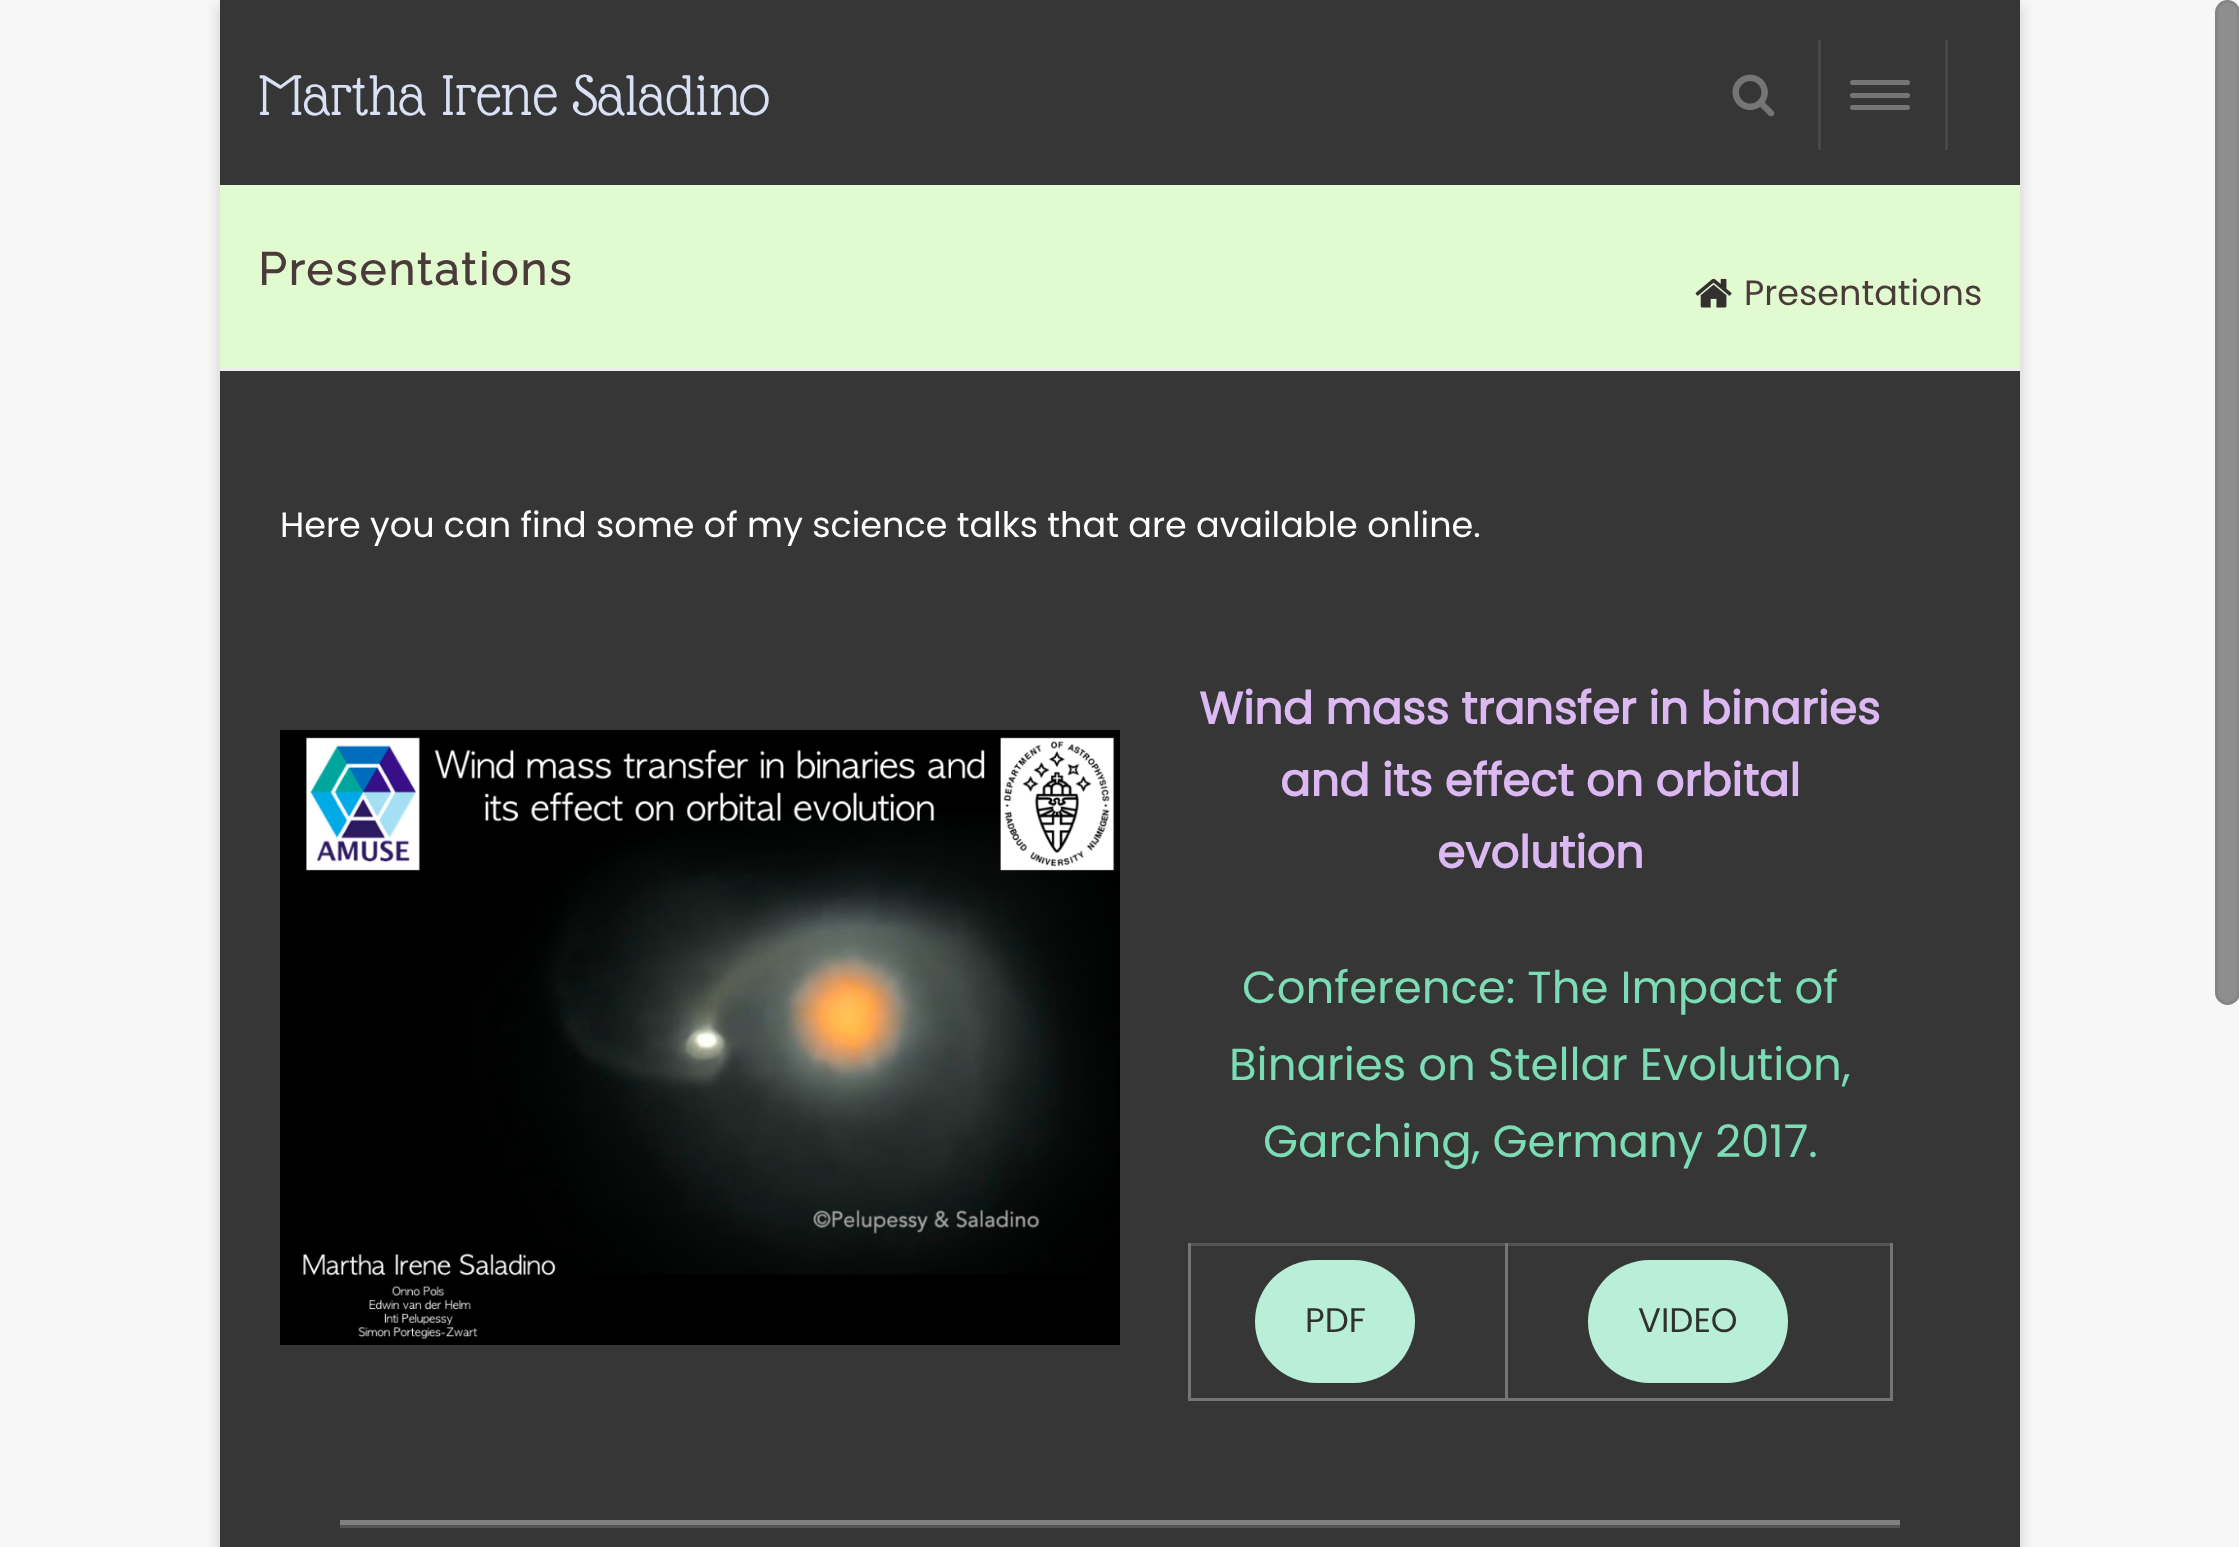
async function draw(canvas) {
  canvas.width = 2239
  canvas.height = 1547
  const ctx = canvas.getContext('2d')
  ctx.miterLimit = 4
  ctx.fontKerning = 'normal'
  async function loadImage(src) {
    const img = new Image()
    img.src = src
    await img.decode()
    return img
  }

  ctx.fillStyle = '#f7f7f7'
  ctx.fillRect(0, 0, 2239, 1547)
  ctx.fillStyle = '#6464644d'
  ctx.filter = 'blur(7.5px)'
  ctx.beginPath()
  ctx.rect(220, 5, 1800, 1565)
  ctx.fill()
  ctx.filter = 'none'
  ctx.fillStyle = '#363636'
  ctx.fillRect(220, 0, 1800, 1547)
  ctx.font = '62.5px Glass Antiqua'
  ctx.fillStyle = '#dae1f5'
  ctx.fillText('Martha Irene Saladino', 258, 115)
  ctx.fillStyle = '#484848'
  ctx.fillRect(1818, 40, 3, 110)
  ctx.drawImage(await loadImage('image0.png'), 1732, 74, 43, 43)
  ctx.fillRect(1945, 40, 3, 110)
  ctx.fillStyle = '#757575'
  ctx.beginPath()
  ctx.roundRect(1850, 80, 60, 5, 2.5)
  ctx.fill()
  ctx.beginPath()
  ctx.roundRect(1850, 93, 60, 5, 2.5)
  ctx.fill()
  ctx.beginPath()
  ctx.roundRect(1850, 105, 60, 5, 2.5)
  ctx.fill()
  ctx.fillStyle = '#e2fad0'
  ctx.fillRect(220, 185, 1800, 183)
  ctx.fillStyle = '#eee'
  ctx.fillRect(220, 368, 1800, 3)
  ctx.letterSpacing = '2.5px'
  ctx.font = 'bold 45px Raleway'
  ctx.fillStyle = '#4a3a3a'
  ctx.fillText('Presentations', 258, 285)
  ctx.drawImage(await loadImage('image1.png'), 1695, 278, 37, 30)
  ctx.letterSpacing = '0px'
  ctx.font = '35px Poppins'
  ctx.fillText('Presentations', 1744, 305)
  ctx.fillStyle = '#fff'
  ctx.fillText('Here you can find some of my science talks that are available online.', 280, 537)
  ctx.drawImage(await loadImage('image2.png'), 280, 730, 840, 615)
  ctx.font = 'bold 45px Poppins'
  ctx.fillStyle = '#dcb9f2'
  ctx.fillText('Wind mass transfer in binaries', 1199, 724)
  ctx.fillText('and its effect on orbital', 1280, 796)
  ctx.fillText('evolution', 1437, 868)
  ctx.font = '45px Poppins'
  ctx.fillStyle = '#7bdcb5'
  ctx.fillText('Conference: The Impact of', 1242, 1003)
  ctx.fillText('Binaries on Stellar Evolution,', 1229, 1080)
  ctx.fillText('Garching, Germany 2017.', 1263, 1157)
  ctx.fillStyle = '#545454'
  ctx.fillRect(1188, 1243, 705, 3)
  ctx.fillStyle = '#757575'
  ctx.fillRect(1890, 1243, 3, 157)
  ctx.fillRect(1505, 1398, 388, 3)
  ctx.fillRect(1505, 1243, 3, 157)
  ctx.fillRect(1188, 1398, 320, 3)
  ctx.fillRect(1188, 1243, 3, 157)
  ctx.fillStyle = '#b9eed9'
  ctx.beginPath()
  ctx.roundRect(1255, 1260, 160, 123, 61.5)
  ctx.fill()
  ctx.font = '34px Poppins'
  ctx.fillStyle = '#313131'
  ctx.fillText('PDF', 1305, 1332)
  ctx.fillStyle = '#b9eed9'
  ctx.beginPath()
  ctx.roundRect(1588, 1260, 200, 123, 61.5)
  ctx.fill()
  ctx.fillStyle = '#313131'
  ctx.fillText('VIDEO', 1638, 1332)
  ctx.fillStyle = '#545454'
  ctx.fillRect(340, 1525, 1560, 3)
  ctx.fillStyle = '#808080'
  ctx.fillRect(340, 1520, 1560, 5)
  ctx.fillStyle = '#8e8e8e'
  ctx.beginPath()
  ctx.roundRect(2216.5, 1.5, 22, 1002, 11)
  ctx.fill()
  ctx.strokeStyle = '#858585'
  ctx.lineWidth = 3
  ctx.stroke()
}

draw(document.querySelector('canvas'))
